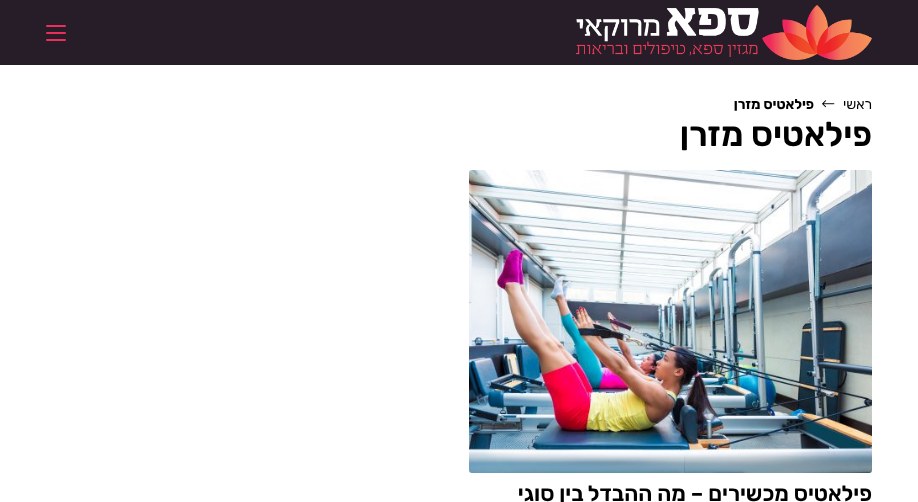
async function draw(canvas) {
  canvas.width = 918
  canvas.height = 502
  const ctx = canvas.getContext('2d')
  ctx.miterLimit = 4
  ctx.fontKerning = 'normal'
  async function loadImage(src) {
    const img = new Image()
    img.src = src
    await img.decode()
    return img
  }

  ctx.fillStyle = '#fff'
  ctx.fillRect(0, 0, 918, 502)
  ctx.fillStyle = '#261d28'
  ctx.fillRect(0, 0, 918, 65)
  ctx.drawImage(await loadImage('image0.png'), 576, 5, 296, 55)
  ctx.fillStyle = '#ed2e5b'
  ctx.beginPath()
  ctx.roundRect(46, 39, 20, 2, 1)
  ctx.fill()
  ctx.beginPath()
  ctx.roundRect(46, 25, 20, 2, 1)
  ctx.fill()
  ctx.beginPath()
  ctx.roundRect(46, 32, 20, 2, 1)
  ctx.fill()
  ctx.direction = 'rtl'
  ctx.font = '14px Rubik'
  ctx.fillStyle = '#000'
  ctx.fillText('ראשי', 872, 109)
  ctx.drawImage(await loadImage('image1.png'), 822, 100, 13, 8)
  ctx.font = 'bold 14px Rubik'
  ctx.fillText('פילאטיס מזרן', 814, 109)
  ctx.font = '600 34px Rubik'
  ctx.fillText('פילאטיס מזרן', 872, 146)
  ctx.drawImage(await loadImage('image2.png'), 469, 170, 403, 303)
  ctx.font = '600 22px Rubik'
  ctx.fillText('פילאטיס מכשירים – מה ההבדל בין סוגי', 872, 501)
}

draw(document.querySelector('canvas'))
